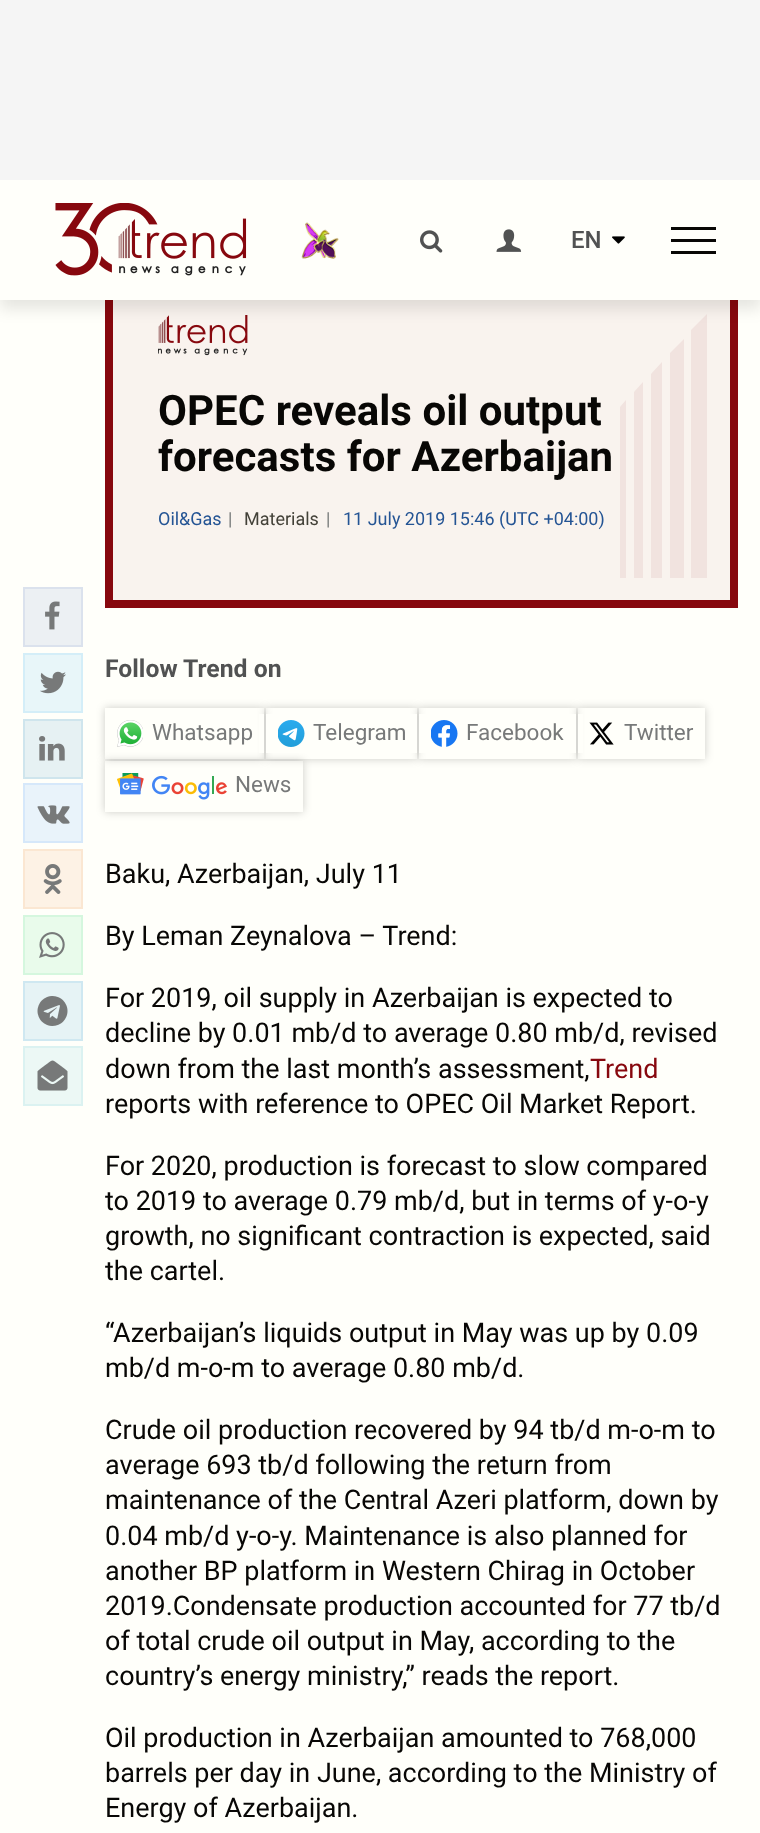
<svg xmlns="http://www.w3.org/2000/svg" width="760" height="1833">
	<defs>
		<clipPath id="clip1"><path d="M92 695H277V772H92ZM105 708H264V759H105Z" clip-rule="evenodd" /></clipPath>
		<clipPath id="clip2"><path d="M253 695H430V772H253ZM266 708H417V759H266Z" clip-rule="evenodd" /></clipPath>
		<clipPath id="clip3"><path d="M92 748H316V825H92ZM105 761H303V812H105Z" clip-rule="evenodd" /></clipPath>
		<clipPath id="clip4"><path d="M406 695H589V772H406ZM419 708H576V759H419Z" clip-rule="evenodd" /></clipPath>
		<clipPath id="clip5"><path d="M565 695H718V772H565ZM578 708H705V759H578Z" clip-rule="evenodd" /></clipPath>
	</defs>
	<rect width="100%" height="100%" fill="#FFFFFA" />
	<rect x="113" y="300" width="617" height="300" fill="#F9F3EE" />
	<rect x="109" y="267" width="625" height="337" fill="none" stroke="#87080E" stroke-width="8" />
	<image x="158" y="315" width="90" height="41" href="assets/img14.png" />
	<path d="M707 314V578H691V330ZM670 578H684V339L670 353ZM651 578H662V362L651 374ZM634 578H643V382L634 392ZM620 578H626V400L620 407Z" fill="#F1E3DF" />
	<rect x="0" y="189" width="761" height="120" fill="#000000" fill-opacity="0.1" filter="blur(7.5px)" />
	<rect x="0" y="0" width="760" height="180" fill="#F5F5F5" />
	<rect x="0" y="180" width="760" height="120" fill="#FFFFFA" />
	<image x="55" y="203" width="192" height="73" href="assets/img1.png" />
	<image x="301" y="222" width="38" height="37" href="assets/img2.png" />
	<image x="420" y="230" width="23" height="23" href="assets/img3.png" />
	<image x="496" y="229" width="26" height="23" href="assets/img4.png" />
	<text x="571" y="248" font-family="Roboto" font-size="24" font-weight="500" fill="#515252">EN</text>
	<image x="612" y="236" width="13" height="8" href="assets/img5.png" />
	<rect x="671" y="227" width="45" height="3" fill="#080705" />
	<rect x="671" y="239" width="45" height="3" fill="#080705" />
	<rect x="671" y="251" width="45" height="3" fill="#080705" />
	<rect x="24" y="588" width="58" height="58" fill="#ECF0F3" stroke="#DBE2ED" stroke-width="2" />
	<image x="45" y="601" width="15" height="29" href="assets/img6.png" />
	<rect x="24" y="654" width="58" height="58" fill="#E8F6F9" stroke="#D4EEF8" stroke-width="2" />
	<image x="40" y="671" width="26" height="23" href="assets/img7.png" />
	<rect x="24" y="720" width="58" height="58" fill="#E6F1F3" stroke="#CFE5ED" stroke-width="2" />
	<image x="39" y="736" width="26" height="25" href="assets/img8.png" />
	<rect x="24" y="784" width="58" height="58" fill="#E9F3FA" stroke="#D6E8FA" stroke-width="2" />
	<image x="37" y="805" width="33" height="19" href="assets/img9.png" />
	<rect x="24" y="850" width="58" height="58" fill="#FDF2E5" stroke="#FBE7D2" stroke-width="2" />
	<image x="43" y="864" width="19" height="30" href="assets/img10.png" />
	<rect x="24" y="916" width="58" height="58" fill="#E9FBEB" stroke="#D5F7DE" stroke-width="2" />
	<image x="39" y="932" width="26" height="26" href="assets/img11.png" />
	<rect x="24" y="982" width="58" height="58" fill="#E6F3F5" stroke="#CFE8F1" stroke-width="2" />
	<image x="37" y="996" width="31" height="30" href="assets/img12.png" />
	<rect x="24" y="1047" width="58" height="58" fill="#ECF8F5" stroke="#DBF2F1" stroke-width="2" />
	<image x="37" y="1060" width="31" height="31" href="assets/img13.png" />
	<g font-family="Roboto" font-size="42" font-weight="700" fill="#080705">
		<text x="158" y="425">OPEC reveals oil output</text>
		<text x="158" y="471">forecasts for Azerbaijan</text>
	</g>
	<text x="158" y="525" font-family="Roboto" font-size="18" fill="#245494">Oil&amp;Gas</text>
	<text x="228" y="525" font-family="Roboto" font-size="18" fill="#777979">|</text>
	<text x="244" y="525" font-family="Roboto" font-size="18" fill="#434138">Materials</text>
	<text x="326" y="525" font-family="Roboto" font-size="18" fill="#777979">|</text>
	<text x="343" y="525" font-family="Roboto" font-size="18" fill="#245494">11 July 2019 15:46 (UTC +04:00)</text>
	<text x="105" y="677" font-family="Roboto" font-size="24.75" font-weight="700" fill="#515252">Follow Trend on</text>
	<g clip-path="url(#clip1)">
		<rect x="105" y="708" width="159" height="51" fill="#000000" fill-opacity="0.2" filter="blur(4px)" />
	</g>
	<g clip-path="url(#clip2)">
		<rect x="266" y="708" width="151" height="51" fill="#000000" fill-opacity="0.2" filter="blur(4px)" />
	</g>
	<g clip-path="url(#clip3)">
		<rect x="105" y="761" width="198" height="51" fill="#000000" fill-opacity="0.2" filter="blur(4px)" />
	</g>
	<rect x="259" y="714" width="5" height="39" fill="#FFFFFA" />
	<image x="117" y="720" width="26" height="27" href="assets/img15.png" />
	<text x="152" y="740" font-family="Roboto" font-size="22.5" fill="#777979">Whatsapp</text>
	<g clip-path="url(#clip4)">
		<rect x="419" y="708" width="157" height="51" fill="#000000" fill-opacity="0.2" filter="blur(4px)" />
	</g>
	<rect x="266" y="714" width="151" height="39" fill="#FFFFFA" />
	<image x="278" y="720" width="27" height="27" href="assets/img16.png" />
	<text x="313" y="740" font-family="Roboto" font-size="22.5" fill="#777979">Telegram</text>
	<g clip-path="url(#clip5)">
		<rect x="578" y="708" width="127" height="51" fill="#000000" fill-opacity="0.2" filter="blur(4px)" />
	</g>
	<rect x="419" y="714" width="157" height="39" fill="#FFFFFA" />
	<image x="431" y="720" width="27" height="27" href="assets/img17.png" />
	<text x="466" y="740" font-family="Roboto" font-size="22.5" fill="#777979">Facebook</text>
	<rect x="578" y="714" width="5" height="39" fill="#FFFFFA" />
	<image x="589" y="722" width="25" height="23" href="assets/img18.png" />
	<text x="624" y="740" font-family="Roboto" font-size="22.5" fill="#777979">Twitter</text>
	<image x="117" y="773" width="110" height="27" href="assets/img19.png" />
	<text x="235" y="792" font-family="Roboto" font-size="22.5" fill="#777979">News</text>
	<g font-family="Roboto" font-size="27" fill="#080705">
		<text x="105" y="883">Baku, Azerbaijan, July 11</text>
		<text x="105" y="945">By Leman Zeynalova – Trend:</text>
		<text x="105" y="1007">For 2019, oil supply in Azerbaijan is expected to</text>
		<text x="105" y="1042">decline by 0.01 mb/d to average 0.80 mb/d, revised</text>
		<text x="105" y="1078">down from the last month’s assessment,</text>
	</g>
	<text x="590" y="1078" font-family="Roboto" font-size="27" fill="#87080E">Trend</text>
	<g font-family="Roboto" font-size="27" fill="#080705">
		<text x="105" y="1113">reports with reference to OPEC Oil Market Report.</text>
		<text x="105" y="1175">For 2020, production is forecast to slow compared</text>
		<text x="105" y="1210">to 2019 to average 0.79 mb/d, but in terms of y-o-y</text>
		<text x="105" y="1245">growth, no significant contraction is expected, said</text>
		<text x="105" y="1280">the cartel.</text>
		<text x="105" y="1342">“Azerbaijan’s liquids output in May was up by 0.09</text>
		<text x="105" y="1377">mb/d m-o-m to average 0.80 mb/d.</text>
		<text x="105" y="1439">Crude oil production recovered by 94 tb/d m-o-m to</text>
		<text x="105" y="1474">average 693 tb/d following the return from</text>
		<text x="105" y="1509">maintenance of the Central Azeri platform, down by</text>
		<text x="105" y="1545">0.04 mb/d y-o-y. Maintenance is also planned for</text>
		<text x="105" y="1580">another BP platform in Western Chirag in October</text>
		<text x="105" y="1615">2019.Condensate production accounted for 77 tb/d</text>
		<text x="105" y="1650">of total crude oil output in May, according to the</text>
		<text x="105" y="1685">country’s energy ministry,” reads the report.</text>
		<text x="105" y="1747">Oil production in Azerbaijan amounted to 768,000</text>
		<text x="105" y="1782">barrels per day in June, according to the Ministry of</text>
		<text x="105" y="1817">Energy of Azerbaijan.</text>
	</g>
</svg>
